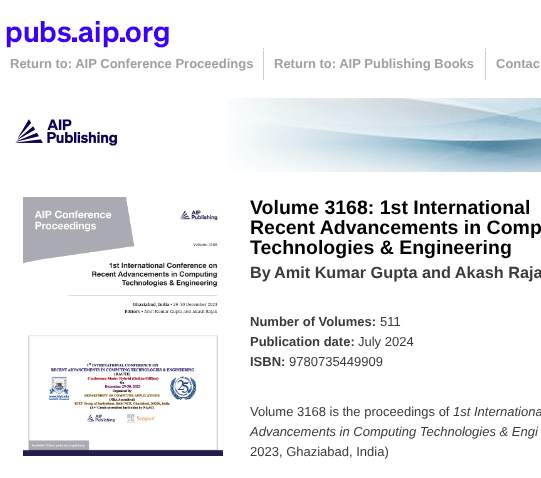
<svg xmlns="http://www.w3.org/2000/svg" width="541" height="478">
	<rect width="100%" height="100%" fill="#FFFFFF" />
	<rect x="263" y="48" width="1" height="32" fill="#CCCCCC" />
	<rect x="485" y="48" width="1" height="32" fill="#CCCCCC" />
	<path d="M0 47V48C0 50 1 51 3 51H538C540 51 541 50 541 48V47C541 49 540 50 538 50H3C1 50 0 49 0 47Z" fill="#FFFFFF" />
	<image x="0" y="16" width="169" height="32" href="assets/img1.png" />
	<g font-family="Liberation Sans" font-size="13" font-weight="700" fill="#A0A0A0">
		<text x="10" y="68">Return to: AIP Conference Proceedings</text>
		<text x="274" y="68">Return to: AIP Publishing Books</text>
		<text x="496" y="68">Contac</text>
	</g>
	<image x="227" y="98" width="314" height="74" href="assets/img2.png" />
	<image x="15" y="119" width="102" height="27" href="assets/img3.png" />
	<image x="23" y="197" width="200" height="259" href="assets/img4.png" />
	<g font-family="Liberation Sans" font-size="19.5" font-weight="700" fill="#000000">
		<text x="250" y="214">Volume 3168: 1st International</text>
		<text x="250" y="234">Recent Advancements in Comp</text>
		<text x="250" y="254">Technologies &amp; Engineering</text>
	</g>
	<g font-family="Liberation Sans" font-size="16.25" font-weight="700" fill="#3B3B3B">
		<text x="250" y="278">By</text>
		<text x="274" y="278">Amit Kumar Gupta and Akash Raja</text>
	</g>
	<text x="250" y="326" font-family="Liberation Sans" font-size="13" font-weight="700" fill="#3B3B3B">Number of Volumes:</text>
	<text x="380" y="326" font-family="Liberation Sans" font-size="13" fill="#3B3B3B">511</text>
	<text x="250" y="346" font-family="Liberation Sans" font-size="13" font-weight="700" fill="#3B3B3B">Publication date:</text>
	<text x="358" y="346" font-family="Liberation Sans" font-size="13" fill="#3B3B3B">July 2024</text>
	<text x="250" y="366" font-family="Liberation Sans" font-size="13" font-weight="700" fill="#3B3B3B">ISBN:</text>
	<g font-family="Liberation Sans" font-size="13" fill="#3B3B3B">
		<text x="289" y="366">9780735449909</text>
		<text x="250" y="416">Volume 3168 is the proceedings of</text>
	</g>
	<g font-family="Liberation Sans" font-size="13" font-style="italic" fill="#3B3B3B">
		<text x="453" y="416">1st Internationa</text>
		<text x="250" y="436">Advancements in Computing Technologies &amp; Engi</text>
	</g>
	<text x="250" y="456" font-family="Liberation Sans" font-size="13" fill="#3B3B3B">2023, Ghaziabad, India)</text>
</svg>
